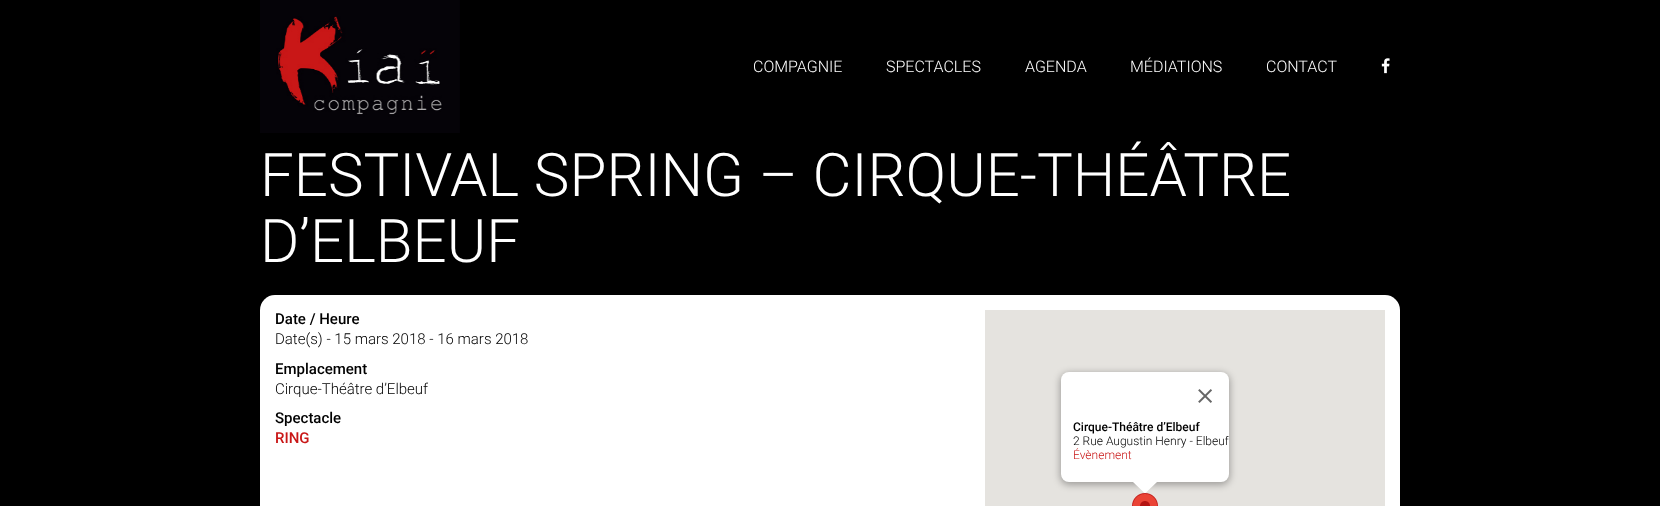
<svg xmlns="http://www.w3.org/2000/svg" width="1660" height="506">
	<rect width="100%" height="100%" fill="#000000" />
	<image x="260" y="0" width="200" height="133" href="assets/img1.png" />
	<g font-family="Roboto" font-size="16" font-weight="300" fill="#FFFFFF">
		<text x="753" y="72">COMPAGNIE</text>
		<text x="886" y="72">SPECTACLES</text>
		<text x="1025" y="72">AGENDA</text>
		<text x="1130" y="72">MÉDIATIONS</text>
		<text x="1266" y="72">CONTACT</text>
	</g>
	<image x="1381" y="58" width="9" height="16" href="assets/img2.png" />
	<g font-family="Roboto" font-size="60" font-weight="300" fill="#FFFFFF">
		<text x="260" y="196">FESTIVAL SPRING – CIRQUE-THÉÂTRE</text>
		<text x="260" y="262">D’ELBEUF</text>
	</g>
	<rect x="260" y="295" width="1140" height="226" rx="15" fill="#FFFFFF" />
	<text x="275" y="324" font-family="Roboto" font-size="15" font-weight="500" fill="#000000">Date / Heure</text>
	<text x="275" y="344" font-family="Roboto" font-size="15" font-weight="300" fill="#000000">Date(s) - 15 mars 2018 - 16 mars 2018</text>
	<text x="275" y="374" font-family="Roboto" font-size="15" font-weight="500" fill="#000000">Emplacement</text>
	<text x="275" y="394" font-family="Roboto" font-size="15" font-weight="300" fill="#000000">Cirque-Théâtre d’Elbeuf</text>
	<text x="275" y="423" font-family="Roboto" font-size="15" font-weight="500" fill="#000000">Spectacle</text>
	<text x="275" y="443" font-family="Roboto" font-size="15" font-weight="500" fill="#C91717">RING</text>
	<rect x="985" y="310" width="400" height="196" fill="#E5E3DF" />
	<image x="1132" y="493" width="26" height="13" href="assets/img4.png" />
	<rect x="1060" y="373" width="170" height="112" rx="9" fill="#000000" fill-opacity="0.3" filter="blur(3.5px)" />
	<rect x="1061" y="372" width="168" height="110" rx="8" fill="#FFFFFF" />
	<image x="1198" y="389" width="14" height="14" href="assets/img3.png" />
	<text x="1073" y="431" font-family="Roboto" font-size="12" font-weight="500" fill="#000000">Cirque-Théâtre d’Elbeuf</text>
	<text x="1073" y="445" font-family="Roboto" font-size="12" font-weight="300" fill="#000000">2 Rue Augustin Henry - Elbeuf</text>
	<text x="1073" y="459" font-family="Roboto" font-size="12" font-weight="300" fill="#C91717">Évènement</text>
	<path d="M1133 482V481.5H1157.5L1145.5 493H1144.5Z" fill="#FFFFFF" />
</svg>
